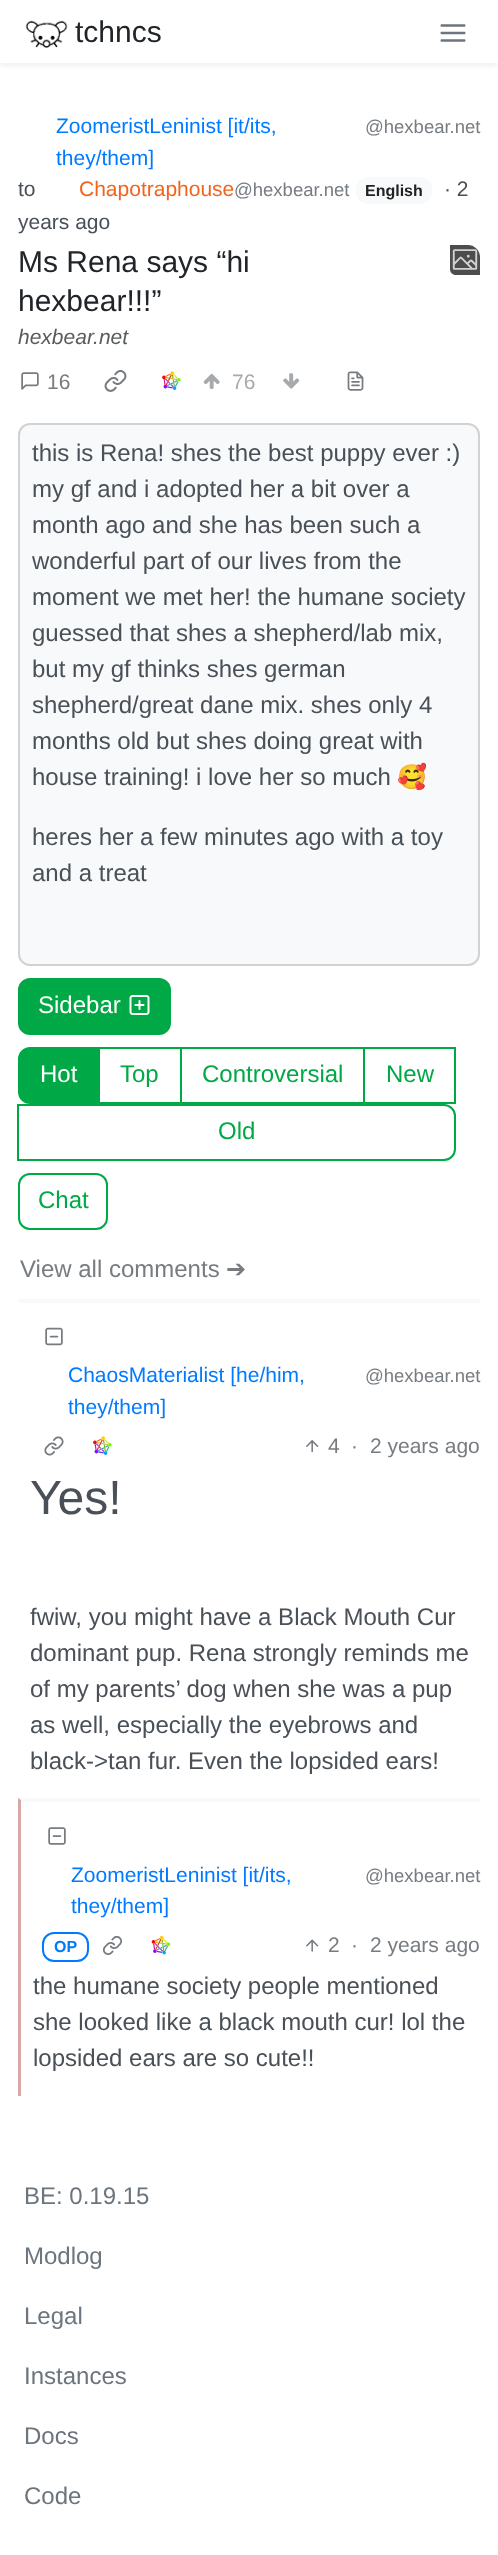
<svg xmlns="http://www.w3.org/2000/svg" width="498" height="2555">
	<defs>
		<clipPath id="clip1"><rect x="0" y="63" width="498" height="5" /></clipPath>
	</defs>
	<rect width="100%" height="100%" fill="#FFFFFF" />
	<g clip-path="url(#clip1)">
		<rect x="0" y="3" width="498" height="63" fill="#222222" fill-opacity="0.07" filter="blur(3px)" />
	</g>
	<image x="25" y="20" width="43" height="28" href="assets/img1.png" />
	<text x="75" y="42" font-family="Liberation Sans" font-size="30" fill="#212529">tchncs</text>
	<image x="440" y="24" width="26" height="18" href="assets/img2.png" />
	<g font-family="Liberation Sans" font-size="21" fill="#007BFF">
		<text x="56" y="133">ZoomeristLeninist [it/its,</text>
		<text x="56" y="165">they/them]</text>
	</g>
	<text x="365" y="133" font-family="Liberation Sans" font-size="18.5" fill="#777C81">@hexbear.net</text>
	<text x="18" y="196" font-family="Liberation Sans" font-size="21" fill="#495057">to</text>
	<text x="79" y="196" font-family="Liberation Sans" font-size="21" fill="#F1641E">Chapotraphouse</text>
	<text x="234" y="196" font-family="Liberation Sans" font-size="18.5" fill="#777C81">@hexbear.net</text>
	<rect x="356" y="177" width="76" height="27" rx="12" fill="#F8F9FA" />
	<text x="365" y="196" font-family="Liberation Sans" font-size="16" font-weight="700" fill="#222222">English</text>
	<g font-family="Liberation Sans" font-size="21" fill="#495057">
		<text x="444" y="196">· 2</text>
		<text x="18" y="229">years ago</text>
	</g>
	<g font-family="Liberation Sans" font-size="30" fill="#212529">
		<text x="18" y="272">Ms Rena says “hi</text>
		<text x="18" y="311">hexbear!!!”</text>
	</g>
	<text x="18" y="344" font-family="Liberation Sans" font-size="21" font-style="italic" fill="#595C5F">hexbear.net</text>
	<path d="M450 245H468C474.5 245 480 250.5 480 257V275H456C452.5 275 450 272.5 450 269Z" fill="#4D4D4D" />
	<image x="452" y="249" width="26" height="21" href="assets/img3.png" />
	<image x="21" y="372" width="18" height="18" href="assets/img4.png" />
	<text x="47" y="389" font-family="Liberation Sans" font-size="21" fill="#777C81">16</text>
	<image x="104" y="370" width="23" height="22" href="assets/img5.png" />
	<image x="162" y="371" width="19" height="19" href="assets/img6.png" />
	<image x="203" y="374" width="17" height="15" href="assets/img7.png" />
	<text x="232" y="389" font-family="Liberation Sans" font-size="21" fill="#A7AAAD">76</text>
	<image x="283" y="373" width="17" height="16" href="assets/img8.png" />
	<image x="347" y="371" width="17" height="20" href="assets/img9.png" />
	<rect x="18" y="423" width="462" height="543" rx="12" fill="#F8F9FA" />
	<rect x="19" y="424" width="460" height="541" rx="11" fill="none" stroke="#222222" stroke-opacity="0.18" stroke-width="2" />
	<g font-family="Liberation Sans" font-size="24" fill="#495057">
		<text x="32" y="461">this is Rena! shes the best puppy ever :)</text>
		<text x="32" y="497">my gf and i adopted her a bit over a</text>
		<text x="32" y="533">month ago and she has been such a</text>
		<text x="32" y="569">wonderful part of our lives from the</text>
		<text x="32" y="605">moment we met her! the humane society</text>
		<text x="32" y="641">guessed that shes a shepherd/lab mix,</text>
		<text x="32" y="677">but my gf thinks shes german</text>
		<text x="32" y="713">shepherd/great dane mix. shes only 4</text>
		<text x="32" y="749">months old but shes doing great with</text>
		<text x="32" y="785">house training! i love her so much</text>
	</g>
	<text x="397" y="785" font-family="Noto Color Emoji" font-size="24" fill="#495057">🥰</text>
	<g font-family="Liberation Sans" font-size="24" fill="#495057">
		<text x="32" y="845">heres her a few minutes ago with a toy</text>
		<text x="32" y="881">and a treat</text>
	</g>
	<rect x="19" y="979" width="151" height="55" rx="11" fill="#00A846" stroke="#00A846" stroke-width="2" />
	<text x="38" y="1013" font-family="Liberation Sans" font-size="24" fill="#FFFFFF">Sidebar</text>
	<image x="129" y="995" width="21" height="20" href="assets/img10.png" />
	<rect x="99" y="1048" width="82" height="55" fill="none" stroke="#00A846" stroke-width="2" />
	<path d="M30 1048H98V1103H30C24 1103 19 1098 19 1092V1059C19 1053 24 1048 30 1048Z" fill="#00A846" stroke="#00A846" stroke-width="2" />
	<text x="40" y="1082" font-family="Liberation Sans" font-size="24" fill="#FFFFFF">Hot</text>
	<text x="120" y="1082" font-family="Liberation Sans" font-size="24" fill="#00A846">Top</text>
	<rect x="181" y="1048" width="183" height="55" fill="none" stroke="#00A846" stroke-width="2" />
	<text x="202" y="1082" font-family="Liberation Sans" font-size="24" fill="#00A846">Controversial</text>
	<rect x="364" y="1048" width="91" height="55" fill="none" stroke="#00A846" stroke-width="2" />
	<text x="386" y="1082" font-family="Liberation Sans" font-size="24" fill="#00A846">New</text>
	<path d="M18 1105H444C450 1105 455 1110 455 1116V1149C455 1155 450 1160 444 1160H18Z" fill="none" stroke="#00A846" stroke-width="2" />
	<text x="218" y="1139" font-family="Liberation Sans" font-size="24" fill="#00A846">Old</text>
	<rect x="19" y="1174" width="88" height="55" rx="11" fill="none" stroke="#00A846" stroke-width="2" />
	<text x="38" y="1208" font-family="Liberation Sans" font-size="24" fill="#00A846">Chat</text>
	<text x="20" y="1277" font-family="Liberation Sans" font-size="24" fill="#777C81">View all comments</text>
	<text x="226" y="1277" font-family="DejaVu Sans" font-size="24" fill="#777C81">➔</text>
	<rect x="18" y="1299" width="462" height="4" fill="#F8F9FA" />
	<image x="45" y="1327" width="18" height="19" href="assets/img11.png" />
	<g font-family="Liberation Sans" font-size="21" fill="#007BFF">
		<text x="68" y="1382">ChaosMaterialist [he/him,</text>
		<text x="68" y="1414">they/them]</text>
	</g>
	<text x="365" y="1382" font-family="Liberation Sans" font-size="18.5" fill="#777C81">@hexbear.net</text>
	<image x="44" y="1436" width="20" height="20" href="assets/img12.png" />
	<image x="93" y="1436" width="19" height="19" href="assets/img13.png" />
	<image x="306" y="1440" width="13" height="13" href="assets/img14.png" />
	<g font-family="Liberation Sans" font-size="21" fill="#777C81">
		<text x="328" y="1453">4</text>
		<text x="351" y="1453">·</text>
		<text x="370" y="1453">2 years ago</text>
	</g>
	<text x="30" y="1514" font-family="Liberation Sans" font-size="48" fill="#495057">Yes!</text>
	<g font-family="Liberation Sans" font-size="24" fill="#495057">
		<text x="30" y="1625">fwiw, you might have a Black Mouth Cur</text>
		<text x="30" y="1661">dominant pup. Rena strongly reminds me</text>
		<text x="30" y="1697">of my parents’ dog when she was a pup</text>
		<text x="30" y="1733">as well, especially the eyebrows and</text>
		<text x="30" y="1769">black-&gt;tan fur. Even the lopsided ears!</text>
	</g>
	<path d="M18 1798H480V1800H21Z" fill="#F8F9FA" />
	<path d="M18 2096V1798L21 1800V2096Z" fill="#D5A9A9" />
	<rect x="21" y="1800" width="459" height="2" fill="#F8F9FA" />
	<image x="48" y="1827" width="18" height="18" href="assets/img15.png" />
	<g font-family="Liberation Sans" font-size="21" fill="#007BFF">
		<text x="71" y="1882">ZoomeristLeninist [it/its,</text>
		<text x="71" y="1913">they/them]</text>
	</g>
	<text x="365" y="1882" font-family="Liberation Sans" font-size="18.5" fill="#777C81">@hexbear.net</text>
	<rect x="43" y="1933" width="45" height="28" rx="11" fill="none" stroke="#007BFF" stroke-width="2" />
	<text x="54" y="1952" font-family="Liberation Sans" font-size="16" font-weight="700" fill="#007BFF">OP</text>
	<image x="102" y="1936" width="20" height="19" href="assets/img16.png" />
	<image x="151" y="1935" width="20" height="20" href="assets/img17.png" />
	<image x="306" y="1939" width="13" height="13" href="assets/img18.png" />
	<g font-family="Liberation Sans" font-size="21" fill="#777C81">
		<text x="328" y="1952">2</text>
		<text x="351" y="1952">·</text>
		<text x="370" y="1952">2 years ago</text>
	</g>
	<g font-family="Liberation Sans" font-size="24" fill="#495057">
		<text x="33" y="1994">the humane society people mentioned</text>
		<text x="33" y="2030">she looked like a black mouth cur! lol the</text>
		<text x="33" y="2066">lopsided ears are so cute!!</text>
	</g>
	<g font-family="Liberation Sans" font-size="24" fill="#6C757D">
		<text x="24" y="2204">BE: 0.19.15</text>
		<text x="24" y="2264">Modlog</text>
		<text x="24" y="2324">Legal</text>
		<text x="24" y="2384">Instances</text>
		<text x="24" y="2444">Docs</text>
		<text x="24" y="2504">Code</text>
	</g>
</svg>
